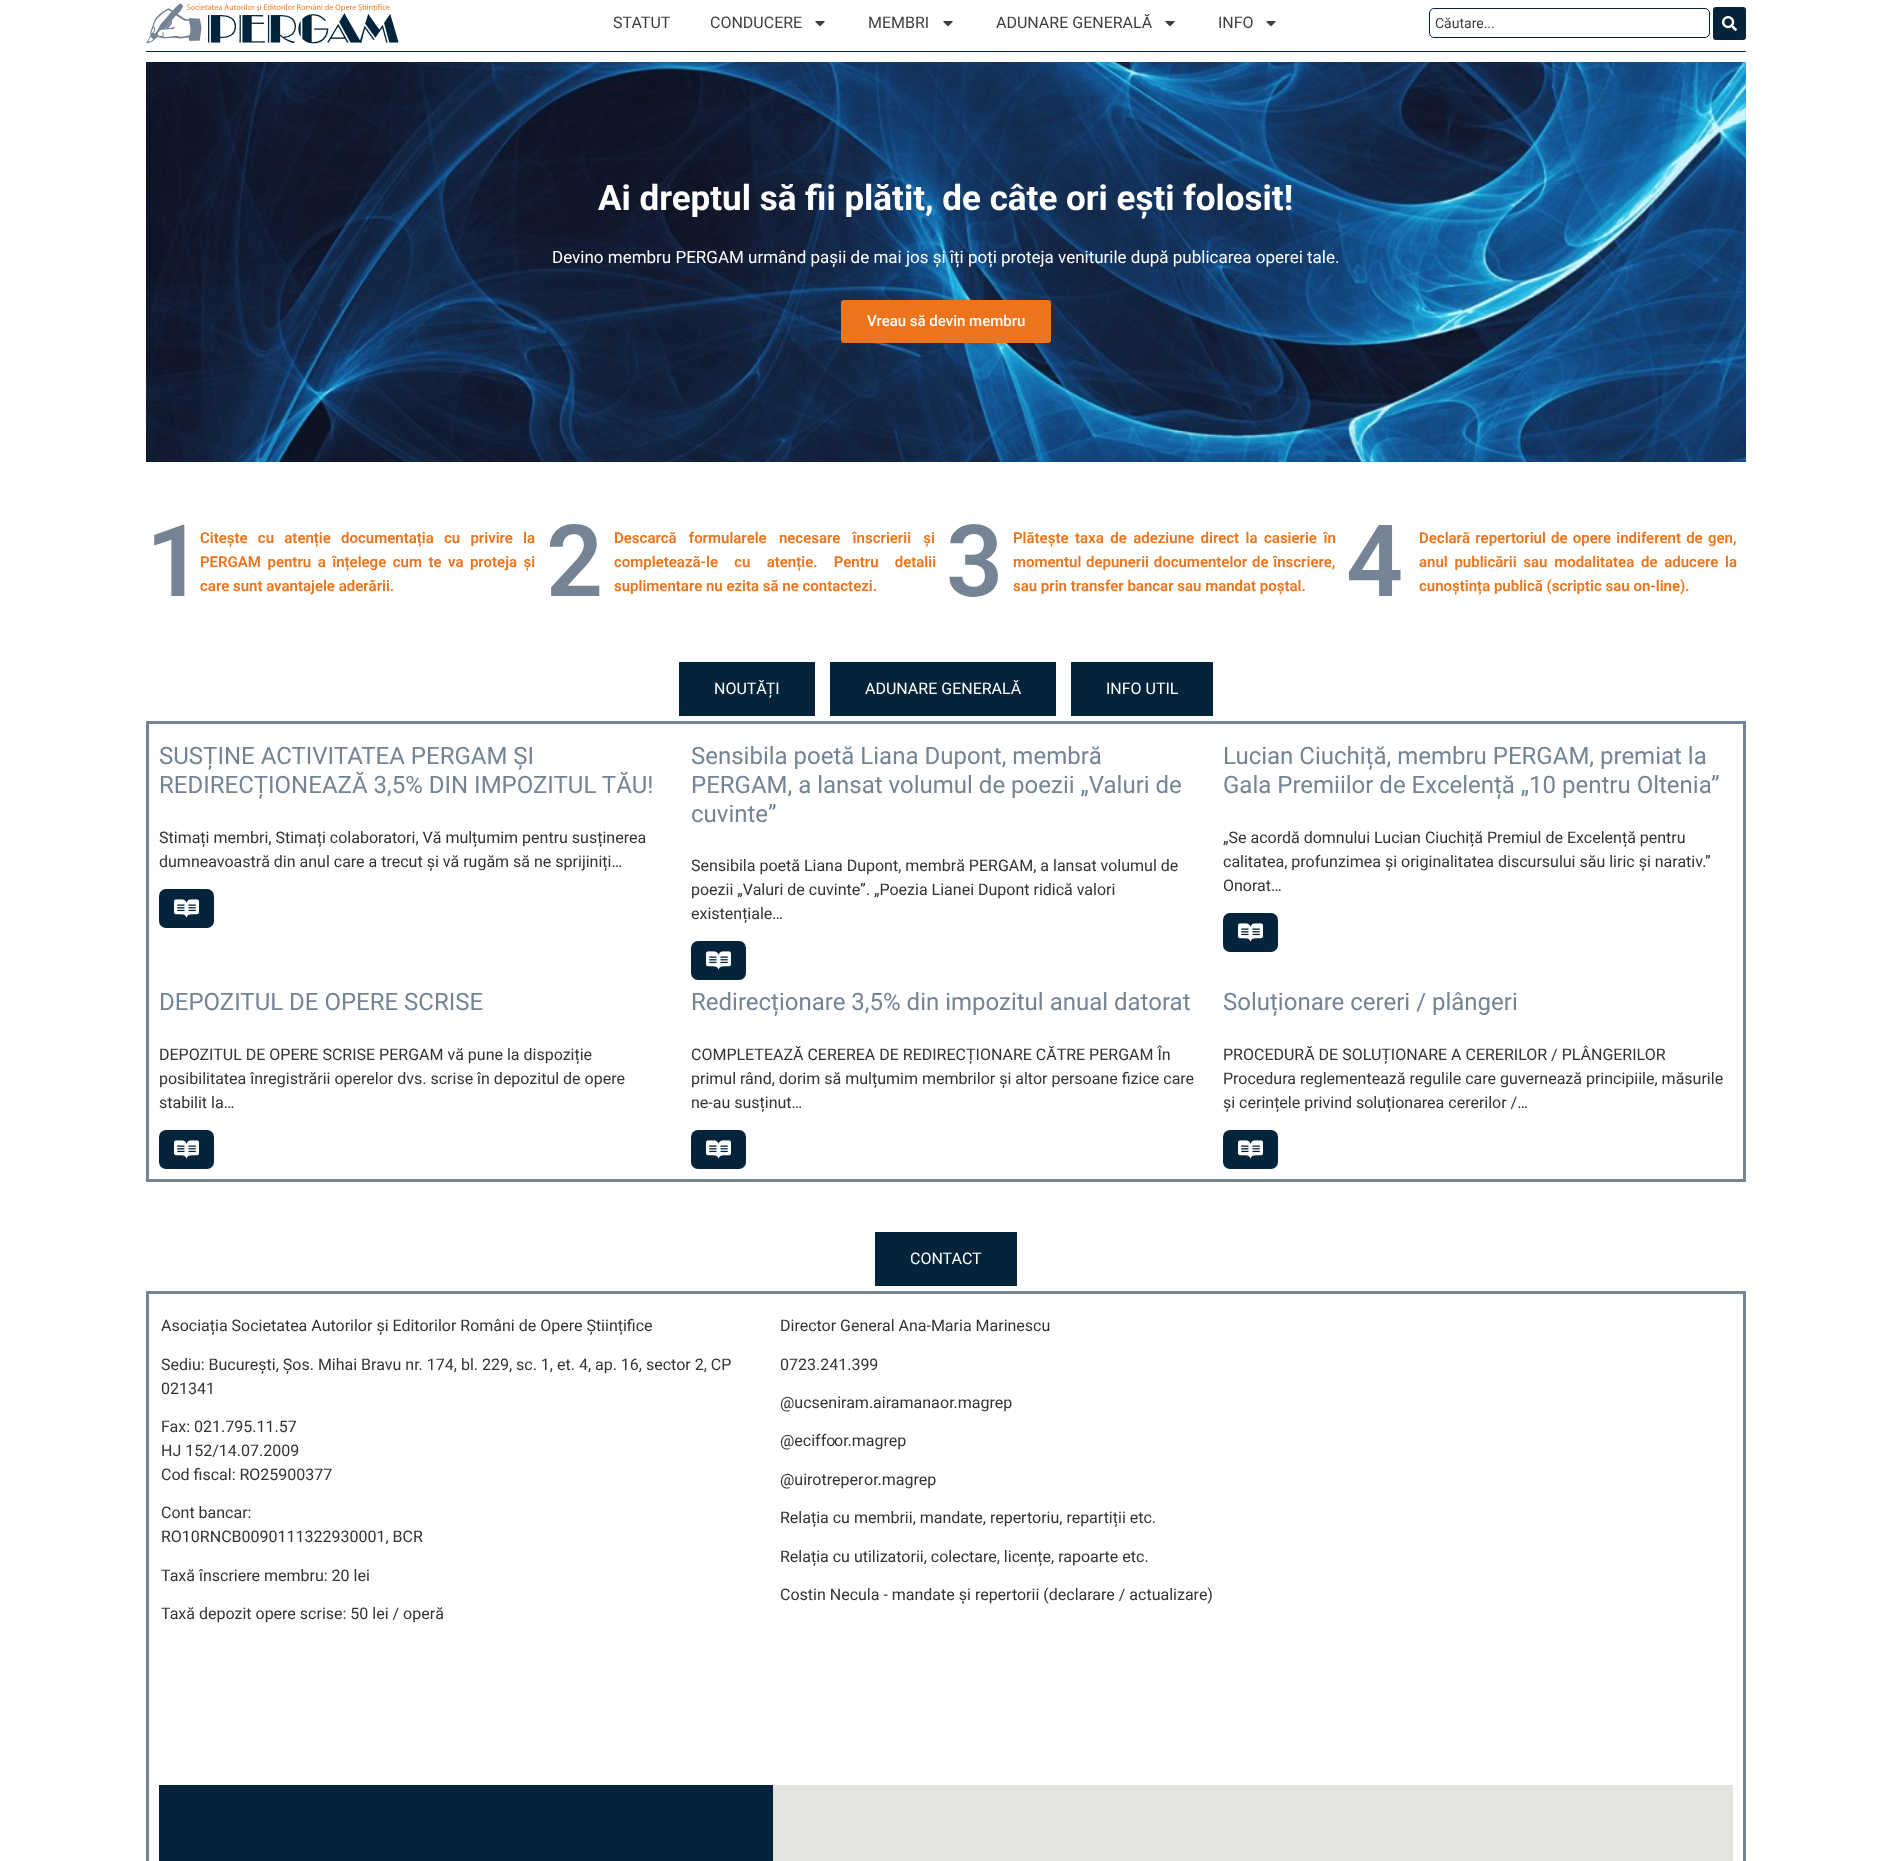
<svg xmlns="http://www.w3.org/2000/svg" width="1892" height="1861">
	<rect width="100%" height="100%" fill="#FFFFFF" />
	<image x="146" y="3" width="253" height="41" href="assets/img1.png" />
	<g font-family="Roboto" font-size="16" fill="#3E3E3E">
		<text x="613" y="28">STATUT</text>
		<text x="710" y="28">CONDUCERE</text>
	</g>
	<image x="815" y="21" width="10" height="6" href="assets/img2.png" />
	<text x="868" y="28" font-family="Roboto" font-size="16" fill="#3E3E3E">MEMBRI</text>
	<image x="943" y="21" width="10" height="6" href="assets/img2.png" />
	<text x="996" y="28" font-family="Roboto" font-size="16" fill="#3E3E3E">ADUNARE GENERALĂ</text>
	<image x="1165" y="21" width="10" height="6" href="assets/img2.png" />
	<text x="1218" y="28" font-family="Roboto" font-size="16" fill="#3E3E3E">INFO</text>
	<image x="1266" y="21" width="10" height="6" href="assets/img2.png" />
	<rect x="1429.5" y="8.5" width="280" height="29" rx="4.5" fill="none" stroke="#04243C" />
	<text x="1435" y="28" font-family="Roboto" font-size="14" fill="#3E3E3E">Căutare...</text>
	<rect x="1713" y="7" width="33" height="33" rx="3" fill="#04243C" />
	<image x="1722" y="16" width="15" height="15" href="assets/img3.png" />
	<rect x="146" y="51" width="1600" height="1" fill="#04243C" />
	<image x="146" y="62" width="1600" height="400" href="assets/img4.png" />
	<text x="598" y="210" font-family="Roboto" font-size="35" font-weight="700" fill="#FFFFFF">Ai dreptul să fii plătit, de câte ori ești folosit!</text>
	<text x="552" y="263" font-family="Roboto" font-size="17" fill="#FFFFFF">Devino membru PERGAM urmând pașii de mai jos și îți poți proteja veniturile după publicarea operei tale.</text>
	<rect x="842" y="301" width="208" height="41" rx="2" fill="#EC741C" stroke="#EC741C" stroke-width="2" />
	<text x="867" y="326" font-family="Roboto" font-size="15" font-weight="500" fill="#FFFFFF">Vreau să devin membru</text>
	<text x="146" y="596" font-family="Roboto" font-size="100" font-weight="600" fill="#748494">1</text>
	<g font-family="Roboto" font-size="15" font-weight="600" fill="#EC741C">
		<text x="200" y="543" word-spacing="6.5">Citește cu atenție documentația cu privire la</text>
		<text x="200" y="567" word-spacing="2.75">PERGAM pentru a înțelege cum te va proteja și</text>
		<text x="200" y="591">care sunt avantajele aderării.</text>
	</g>
	<text x="546" y="596" font-family="Roboto" font-size="100" font-weight="600" fill="#748494">2</text>
	<g font-family="Roboto" font-size="15" font-weight="600" fill="#EC741C">
		<text x="614" y="543" word-spacing="8.5">Descarcă formularele necesare înscrierii și</text>
		<text x="614" y="567" word-spacing="12.5">completează-le cu atenție. Pentru detalii</text>
		<text x="614" y="591">suplimentare nu ezita să ne contactezi.</text>
	</g>
	<text x="946" y="596" font-family="Roboto" font-size="100" font-weight="600" fill="#748494">3</text>
	<g font-family="Roboto" font-size="15" font-weight="600" fill="#EC741C">
		<text x="1013" y="543" word-spacing="2.75">Plătește taxa de adeziune direct la casierie în</text>
		<text x="1013" y="567" word-spacing="1">momentul depunerii documentelor de înscriere,</text>
		<text x="1013" y="591">sau prin transfer bancar sau mandat poștal.</text>
	</g>
	<text x="1346" y="596" font-family="Roboto" font-size="100" font-weight="600" fill="#748494">4</text>
	<g font-family="Roboto" font-size="15" font-weight="600" fill="#EC741C">
		<text x="1419" y="543" word-spacing="1.5">Declară repertoriul de opere indiferent de gen,</text>
		<text x="1419" y="567" word-spacing="3">anul publicării sau modalitatea de aducere la</text>
		<text x="1419" y="591">cunoștința publică (scriptic sau on-line).</text>
	</g>
	<rect x="679" y="662" width="136" height="54" fill="#04243C" />
	<text x="714" y="694" font-family="Roboto" font-size="16" fill="#FFFFFF">NOUTĂȚI</text>
	<rect x="830" y="662" width="226" height="54" fill="#04243C" />
	<text x="865" y="694" font-family="Roboto" font-size="16" fill="#FFFFFF">ADUNARE GENERALĂ</text>
	<rect x="1071" y="662" width="142" height="54" fill="#04243C" />
	<text x="1106" y="694" font-family="Roboto" font-size="16" fill="#FFFFFF">INFO UTIL</text>
	<rect x="147.5" y="722.5" width="1597" height="458" fill="none" stroke="#748494" stroke-width="3" />
	<g font-family="Roboto" font-size="24" fill="#748494">
		<text x="159" y="764">SUSȚINE ACTIVITATEA PERGAM ȘI</text>
		<text x="159" y="793">REDIRECȚIONEAZĂ 3,5% DIN IMPOZITUL TĂU!</text>
	</g>
	<g font-family="Roboto" font-size="16" fill="#333333">
		<text x="159" y="843">Stimați membri, Stimați colaboratori, Vă mulțumim pentru susținerea</text>
		<text x="159" y="867">dumneavoastră din anul care a trecut și vă rugăm să ne sprijiniți…</text>
	</g>
	<rect x="159" y="889" width="55" height="39" rx="7" fill="#04243C" />
	<image x="174" y="899" width="25" height="19" href="assets/img5.png" />
	<g font-family="Roboto" font-size="24" fill="#748494">
		<text x="691" y="764">Sensibila poetă Liana Dupont, membră</text>
		<text x="691" y="793">PERGAM, a lansat volumul de poezii „Valuri de</text>
		<text x="691" y="822">cuvinte”</text>
	</g>
	<g font-family="Roboto" font-size="16" fill="#333333">
		<text x="691" y="871">Sensibila poetă Liana Dupont, membră PERGAM, a lansat volumul de</text>
		<text x="691" y="895">poezii „Valuri de cuvinte”. „Poezia Lianei Dupont ridică valori</text>
		<text x="691" y="919">existențiale…</text>
	</g>
	<rect x="691" y="941" width="55" height="39" rx="7" fill="#04243C" />
	<image x="706" y="951" width="25" height="19" href="assets/img5.png" />
	<g font-family="Roboto" font-size="24" fill="#748494">
		<text x="1223" y="764">Lucian Ciuchiță, membru PERGAM, premiat la</text>
		<text x="1223" y="793">Gala Premiilor de Excelență „10 pentru Oltenia”</text>
	</g>
	<g font-family="Roboto" font-size="16" fill="#333333">
		<text x="1223" y="843">„Se acordă domnului Lucian Ciuchiță Premiul de Excelență pentru</text>
		<text x="1223" y="867">calitatea, profunzimea și originalitatea discursului său liric și narativ.”</text>
		<text x="1223" y="891">Onorat…</text>
	</g>
	<rect x="1223" y="913" width="55" height="39" rx="7" fill="#04243C" />
	<image x="1238" y="923" width="25" height="19" href="assets/img5.png" />
	<text x="159" y="1010" font-family="Roboto" font-size="24" fill="#748494">DEPOZITUL DE OPERE SCRISE</text>
	<g font-family="Roboto" font-size="16" fill="#333333">
		<text x="159" y="1060">DEPOZITUL DE OPERE SCRISE PERGAM vă pune la dispoziție</text>
		<text x="159" y="1084">posibilitatea înregistrării operelor dvs. scrise în depozitul de opere</text>
		<text x="159" y="1108">stabilit la…</text>
	</g>
	<rect x="159" y="1130" width="55" height="39" rx="7" fill="#04243C" />
	<image x="174" y="1140" width="25" height="19" href="assets/img5.png" />
	<text x="691" y="1010" font-family="Roboto" font-size="24" fill="#748494">Redirecționare 3,5% din impozitul anual datorat</text>
	<g font-family="Roboto" font-size="16" fill="#333333">
		<text x="691" y="1060">COMPLETEAZĂ CEREREA DE REDIRECȚIONARE CĂTRE PERGAM În</text>
		<text x="691" y="1084">primul rând, dorim să mulțumim membrilor și altor persoane fizice care</text>
		<text x="691" y="1108">ne-au susținut…</text>
	</g>
	<rect x="691" y="1130" width="55" height="39" rx="7" fill="#04243C" />
	<image x="706" y="1140" width="25" height="19" href="assets/img5.png" />
	<text x="1223" y="1010" font-family="Roboto" font-size="24" fill="#748494">Soluționare cereri / plângeri</text>
	<g font-family="Roboto" font-size="16" fill="#333333">
		<text x="1223" y="1060">PROCEDURĂ DE SOLUȚIONARE A CERERILOR / PLÂNGERILOR</text>
		<text x="1223" y="1084">Procedura reglementează regulile care guvernează principiile, măsurile</text>
		<text x="1223" y="1108">și cerințele privind soluționarea cererilor /…</text>
	</g>
	<rect x="1223" y="1130" width="55" height="39" rx="7" fill="#04243C" />
	<image x="1238" y="1140" width="25" height="19" href="assets/img5.png" />
	<rect x="875" y="1232" width="142" height="54" fill="#04243C" />
	<text x="910" y="1264" font-family="Roboto" font-size="16" fill="#FFFFFF">CONTACT</text>
	<rect x="147.5" y="1292.5" width="1597" height="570" fill="none" stroke="#748494" stroke-width="3" />
	<g font-family="Roboto" font-size="16" fill="#333333">
		<text x="161" y="1331">Asociația Societatea Autorilor și Editorilor Români de Opere Științifice</text>
		<text x="161" y="1370">Sediu: București, Șos. Mihai Bravu nr. 174, bl. 229, sc. 1, et. 4, ap. 16, sector 2, CP</text>
		<text x="161" y="1394">021341</text>
		<text x="161" y="1432">Fax: 021.795.11.57</text>
		<text x="161" y="1456">HJ 152/14.07.2009</text>
		<text x="161" y="1480">Cod fiscal: RO25900377</text>
		<text x="161" y="1518">Cont bancar:</text>
		<text x="161" y="1542">RO10RNCB0090111322930001, BCR</text>
		<text x="161" y="1581">Taxă înscriere membru: 20 lei</text>
		<text x="161" y="1619">Taxă depozit opere scrise: 50 lei / operă</text>
		<text x="780" y="1331">Director General Ana-Maria Marinescu</text>
		<text x="780" y="1370">0723.241.399</text>
		<text x="780" y="1408">@ucseniram.airamana</text>
		<text x="940" y="1408">or.magrep</text>
		<text x="834" y="1446">or.magrep</text>
		<text x="780" y="1446">@eciffo</text>
		<text x="780" y="1485">@uirotreper</text>
		<text x="864" y="1485">or.magrep</text>
		<text x="780" y="1523">Relația cu membrii, mandate, repertoriu, repartiții etc.</text>
		<text x="780" y="1562">Relația cu utilizatorii, colectare, licențe, rapoarte etc.</text>
		<text x="780" y="1600">Costin Necula - mandate și repertorii (declarare / actualizare)</text>
	</g>
	<rect x="159" y="1785" width="614" height="76" fill="#04243C" />
	<rect x="773" y="1785" width="960" height="76" fill="#E5E3DF" />
</svg>
